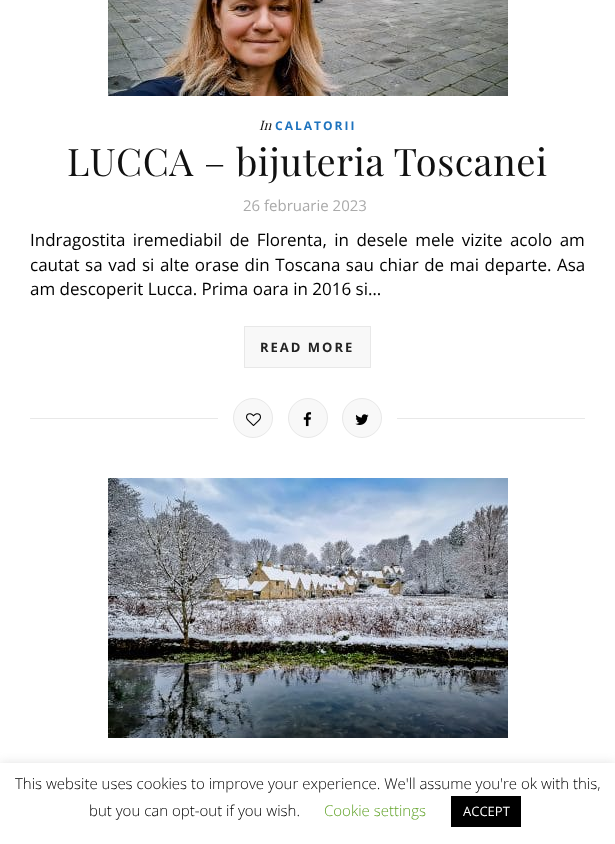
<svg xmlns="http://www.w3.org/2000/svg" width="615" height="844">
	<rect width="100%" height="100%" fill="#FFFFFF" />
	<image x="108" y="0" width="400" height="96" href="assets/img1.png" />
	<text x="259" y="130" font-family="Playfair Display" font-size="13" font-style="italic" fill="#111111">In</text>
	<text x="275" y="130" font-family="Open Sans" font-size="12" font-weight="700" letter-spacing="2" fill="#1E73BE">CALATORII</text>
	<text x="67" y="176" font-family="Playfair Display" font-size="38" letter-spacing="0.5" fill="#111111">LUCCA – bijuteria Toscanei</text>
	<text x="243" y="211" font-family="Open Sans" font-size="15" fill="#AAAAAA">26 februarie 2023</text>
	<g font-family="Open Sans" font-size="17" fill="#000000">
		<text x="30" y="246" word-spacing="3">Indragostita iremediabil de Florenta, in desele mele vizite acolo am</text>
		<text x="30" y="271" word-spacing="1.1">cautat sa vad si alte orase din Toscana sau chiar de mai departe. Asa</text>
		<text x="30" y="295">am descoperit Lucca. Prima oara in 2016 si…</text>
	</g>
	<rect x="244.5" y="326.5" width="126" height="41" fill="#F8F8F8" stroke="#E8E8E8" />
	<text x="260" y="352" font-family="Open Sans" font-size="13" font-weight="700" letter-spacing="2" fill="#222222">READ MORE</text>
	<rect x="30" y="418" width="188" height="1" fill="#E8E8E8" />
	<circle cx="253" cy="418" r="19.5" fill="#F8F8F8" stroke="#E8E8E8" />
	<image x="246" y="413" width="15" height="13" href="assets/img2.png" />
	<circle cx="308" cy="418" r="19.5" fill="#F8F8F8" stroke="#E8E8E8" />
	<image x="303" y="412" width="9" height="15" href="assets/img3.png" />
	<circle cx="362" cy="418" r="19.5" fill="#F8F8F8" stroke="#E8E8E8" />
	<image x="355" y="414" width="14" height="11" href="assets/img4.png" />
	<rect x="397" y="418" width="188" height="1" fill="#E8E8E8" />
	<image x="108" y="478" width="400" height="260" href="assets/img5.png" />
	<rect x="0" y="762" width="615" height="81" fill="#ACABAB" fill-opacity="0.3" filter="blur(5px)" />
	<rect x="0" y="763" width="615" height="81" fill="#FFFFFF" />
	<g font-family="Open Sans" font-size="15" font-weight="300" fill="#000000">
		<text x="15" y="789">This website uses cookies to improve your experience. We'll assume you're ok with this,</text>
		<text x="89" y="816">but you can opt-out if you wish.</text>
	</g>
	<text x="324" y="816" font-family="Open Sans" font-size="15" font-weight="300" fill="#62A329">Cookie settings</text>
	<rect x="451" y="796" width="70" height="31" fill="#000000" />
	<text x="463" y="816" font-family="Open Sans" font-size="13" fill="#FFFFFF">ACCEPT</text>
</svg>
